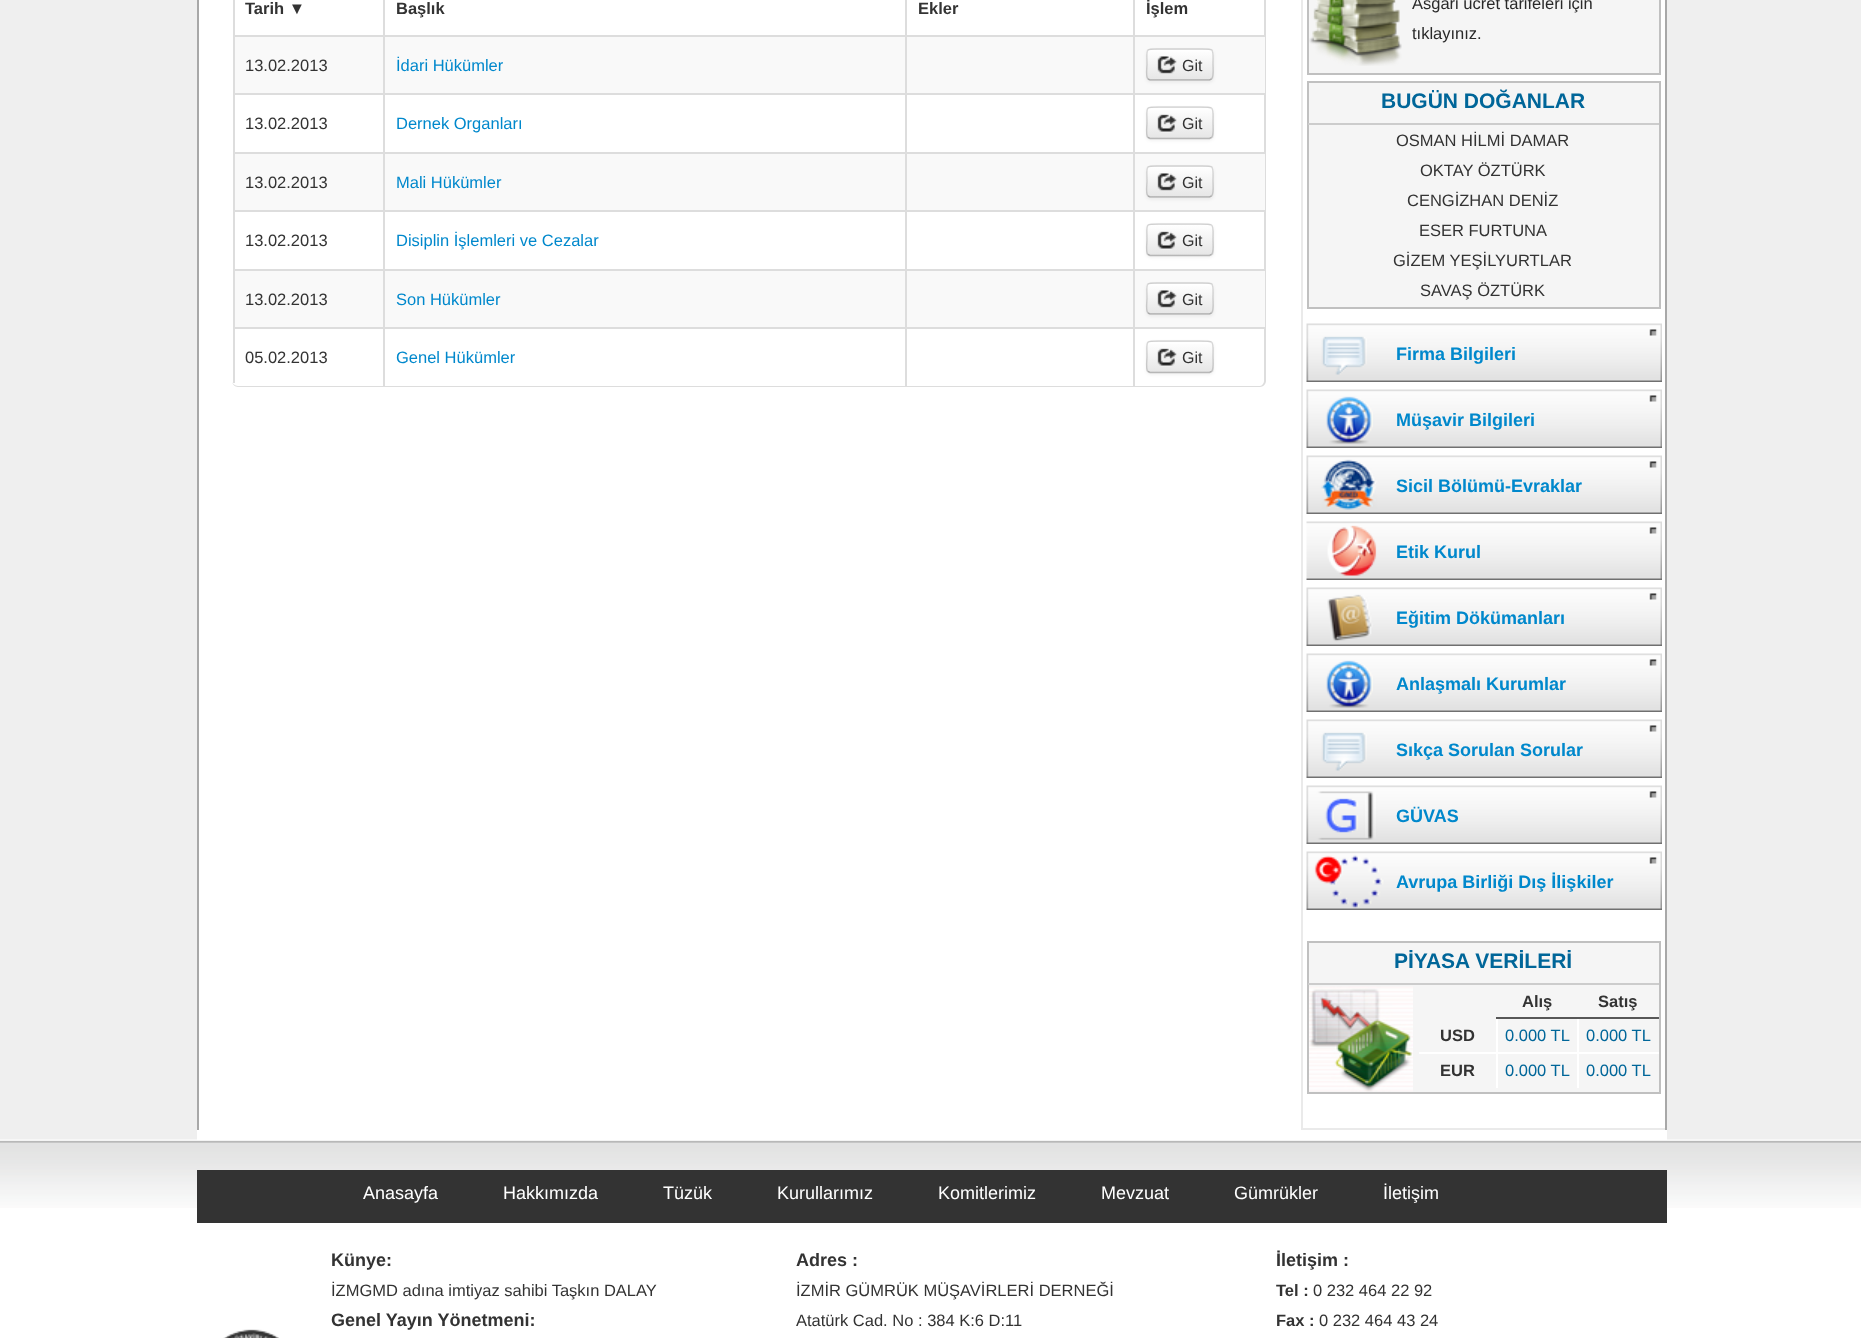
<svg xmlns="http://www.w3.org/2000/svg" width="1861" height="1338">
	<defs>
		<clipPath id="clip1"><rect x="1146" y="48" width="68" height="33" rx="5" /></clipPath>
		<linearGradient id="g1" gradientUnits="userSpaceOnUse" x1="1180" y1="50" x2="1180" y2="80"><stop offset="0" stop-color="#FFFFFF" /><stop offset="1" stop-color="#E6E6E6" /></linearGradient>
		<clipPath id="clip2"><rect x="1146" y="107" width="68" height="33" rx="5" /></clipPath>
		<linearGradient id="g2" gradientUnits="userSpaceOnUse" x1="1180" y1="108" x2="1180" y2="138"><stop offset="0" stop-color="#FFFFFF" /><stop offset="1" stop-color="#E6E6E6" /></linearGradient>
		<clipPath id="clip3"><rect x="1146" y="165" width="68" height="33" rx="5" /></clipPath>
		<linearGradient id="g3" gradientUnits="userSpaceOnUse" x1="1180" y1="167" x2="1180" y2="197"><stop offset="0" stop-color="#FFFFFF" /><stop offset="1" stop-color="#E6E6E6" /></linearGradient>
		<clipPath id="clip4"><rect x="1146" y="224" width="68" height="33" rx="5" /></clipPath>
		<linearGradient id="g4" gradientUnits="userSpaceOnUse" x1="1180" y1="225" x2="1180" y2="255"><stop offset="0" stop-color="#FFFFFF" /><stop offset="1" stop-color="#E6E6E6" /></linearGradient>
		<clipPath id="clip5"><rect x="1146" y="282" width="68" height="33" rx="5" /></clipPath>
		<linearGradient id="g5" gradientUnits="userSpaceOnUse" x1="1180" y1="284" x2="1180" y2="314"><stop offset="0" stop-color="#FFFFFF" /><stop offset="1" stop-color="#E6E6E6" /></linearGradient>
		<clipPath id="clip6"><rect x="1146" y="341" width="68" height="33" rx="5" /></clipPath>
		<linearGradient id="g6" gradientUnits="userSpaceOnUse" x1="1180" y1="342" x2="1180" y2="372"><stop offset="0" stop-color="#FFFFFF" /><stop offset="1" stop-color="#E6E6E6" /></linearGradient>
	</defs>
	<rect width="100%" height="100%" fill="#EFEFEF" />
	<rect x="197" y="0" width="1470" height="1140" fill="#FFFFFF" />
	<rect x="1665" y="0" width="2" height="1130" fill="#A8A8A8" />
	<rect x="197" y="0" width="2" height="1130" fill="#A8A8A8" />
	<path d="M238-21H1260C1263-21 1266-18 1266-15V381C1266 384 1263 387 1260 387H238C235 387 232 384 232 381V-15C232-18 235-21 238-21ZM238-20H1260C1262-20 1264-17 1264-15V381C1264 383 1262 386 1260 386H238C235 386 232 383 232 381V-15C232-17 235-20 238-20Z" fill="#DDDDDD" fill-rule="evenodd" />
	<rect x="233" y="0" width="2" height="35" fill="#DDDDDD" />
	<text x="245" y="14" font-family="Liberation Sans" font-size="16.5" font-weight="700" fill="#333333">Tarih ▼</text>
	<rect x="383" y="0" width="2" height="35" fill="#DDDDDD" />
	<text x="396" y="14" font-family="Liberation Sans" font-size="16.5" font-weight="700" fill="#333333">Başlık</text>
	<rect x="905" y="0" width="2" height="35" fill="#DDDDDD" />
	<text x="918" y="14" font-family="Liberation Sans" font-size="16.5" font-weight="700" fill="#333333">Ekler</text>
	<rect x="1133" y="0" width="2" height="35" fill="#DDDDDD" />
	<text x="1146" y="14" font-family="Liberation Sans" font-size="16.5" font-weight="700" fill="#333333">İşlem</text>
	<rect x="235" y="37" width="148" height="56" fill="#F9F9F9" />
	<rect x="233" y="35" width="1032" height="2" fill="#DDDDDD" />
	<rect x="233" y="35" width="2" height="58" fill="#DDDDDD" />
	<text x="245" y="71" font-family="Liberation Sans" font-size="16.5" fill="#333333">13.02.2013</text>
	<rect x="385" y="37" width="520" height="56" fill="#F9F9F9" />
	<rect x="383" y="35" width="2" height="58" fill="#DDDDDD" />
	<text x="396" y="71" font-family="Liberation Sans" font-size="16.5" fill="#0088CC">İdari Hükümler</text>
	<rect x="907" y="37" width="226" height="56" fill="#F9F9F9" />
	<rect x="905" y="35" width="2" height="58" fill="#DDDDDD" />
	<rect x="1135" y="37" width="130" height="56" fill="#F9F9F9" />
	<rect x="1133" y="35" width="2" height="58" fill="#DDDDDD" />
	<rect x="1146" y="50" width="68" height="33" rx="5" fill="#000000" fill-opacity="0.05" filter="blur(1.5px)" />
	<rect x="1146" y="48" width="68" height="33" rx="5" fill="#F5F5F5" />
	<g clip-path="url(#clip1)">
		<rect x="1146" y="50" width="68" height="30" fill="url(#g1)" />
	</g>
	<path d="M1150 51H1209C1211 51 1212 52 1212 54C1212 48 1204 50 1199 50H1161C1156 50 1148 48 1148 54C1148 52 1149 51 1150 51Z" fill="#FFFFFF" />
	<path d="M1211.5 79L1209.5 80H1150L1148 79" fill="none" stroke="#000000" stroke-opacity="0.25" stroke-width="1.5" />
	<path d="M1148 79C1145.5 77 1147 67.5 1147 64.5C1147 48 1144 49 1160 49H1199C1215.5 49 1213 48 1213 64.5C1213 67.5 1214 77 1211.5 79" fill="none" stroke="#000000" stroke-opacity="0.15" stroke-width="1.5" />
	<image x="1157" y="56" width="20" height="18" href="assets/img1.png" />
	<text x="1182" y="71" font-family="Liberation Sans" font-size="16" fill="#333333">Git</text>
	<rect x="233" y="93" width="1032" height="2" fill="#DDDDDD" />
	<rect x="233" y="93" width="2" height="59" fill="#DDDDDD" />
	<text x="245" y="129" font-family="Liberation Sans" font-size="16.5" fill="#333333">13.02.2013</text>
	<rect x="383" y="93" width="2" height="59" fill="#DDDDDD" />
	<text x="396" y="129" font-family="Liberation Sans" font-size="16.5" fill="#0088CC">Dernek Organları</text>
	<rect x="905" y="93" width="2" height="59" fill="#DDDDDD" />
	<rect x="1133" y="93" width="2" height="59" fill="#DDDDDD" />
	<rect x="1146" y="108" width="68" height="33" rx="5" fill="#000000" fill-opacity="0.05" filter="blur(1.5px)" />
	<rect x="1146" y="107" width="68" height="33" rx="5" fill="#F5F5F5" />
	<g clip-path="url(#clip2)">
		<rect x="1146" y="108" width="68" height="30" fill="url(#g2)" />
	</g>
	<path d="M1150 110H1211L1212 112C1212 106 1204 108 1199 108H1161C1156 108 1148 106 1148 112C1148 111 1149 110 1150 110Z" fill="#FFFFFF" />
	<path d="M1211.5 137.5L1209.5 138.5H1150L1148 137.5" fill="none" stroke="#000000" stroke-opacity="0.25" stroke-width="1.5" />
	<path d="M1148 137.5C1145.5 135.5 1147 126 1147 123C1147 106.5 1144 107 1160 107H1199C1215.5 107 1213 106.5 1213 123C1213 126 1214 135.5 1211.5 137.5" fill="none" stroke="#000000" stroke-opacity="0.15" stroke-width="1.5" />
	<image x="1157" y="114" width="20" height="19" href="assets/img2.png" />
	<text x="1182" y="129" font-family="Liberation Sans" font-size="16" fill="#333333">Git</text>
	<rect x="235" y="154" width="148" height="56" fill="#F9F9F9" />
	<rect x="233" y="152" width="1032" height="2" fill="#DDDDDD" />
	<rect x="233" y="152" width="2" height="58" fill="#DDDDDD" />
	<text x="245" y="188" font-family="Liberation Sans" font-size="16.5" fill="#333333">13.02.2013</text>
	<rect x="385" y="154" width="520" height="56" fill="#F9F9F9" />
	<rect x="383" y="152" width="2" height="58" fill="#DDDDDD" />
	<text x="396" y="188" font-family="Liberation Sans" font-size="16.5" fill="#0088CC">Mali Hükümler</text>
	<rect x="907" y="154" width="226" height="56" fill="#F9F9F9" />
	<rect x="905" y="152" width="2" height="58" fill="#DDDDDD" />
	<rect x="1135" y="154" width="130" height="56" fill="#F9F9F9" />
	<rect x="1133" y="152" width="2" height="58" fill="#DDDDDD" />
	<rect x="1146" y="167" width="68" height="33" rx="5" fill="#000000" fill-opacity="0.05" filter="blur(1.5px)" />
	<rect x="1146" y="165" width="68" height="33" rx="5" fill="#F5F5F5" />
	<g clip-path="url(#clip3)">
		<rect x="1146" y="167" width="68" height="30" fill="url(#g3)" />
	</g>
	<path d="M1150 168H1209C1211 168 1212 169 1212 171C1212 165 1204 167 1199 167H1161C1156 167 1148 165 1148 171C1148 169 1149 168 1150 168Z" fill="#FFFFFF" />
	<path d="M1211.5 196L1209.5 197H1150L1148 196" fill="none" stroke="#000000" stroke-opacity="0.25" stroke-width="1.5" />
	<path d="M1148 196C1145.5 194 1147 184.5 1147 181.5C1147 165 1144 166 1160 166H1199C1215.5 166 1213 165 1213 181.5C1213 184.5 1214 194 1211.5 196" fill="none" stroke="#000000" stroke-opacity="0.15" stroke-width="1.5" />
	<image x="1157" y="173" width="20" height="18" href="assets/img1.png" />
	<text x="1182" y="188" font-family="Liberation Sans" font-size="16" fill="#333333">Git</text>
	<rect x="233" y="210" width="1032" height="2" fill="#DDDDDD" />
	<rect x="233" y="210" width="2" height="59" fill="#DDDDDD" />
	<text x="245" y="246" font-family="Liberation Sans" font-size="16.5" fill="#333333">13.02.2013</text>
	<rect x="383" y="210" width="2" height="59" fill="#DDDDDD" />
	<text x="396" y="246" font-family="Liberation Sans" font-size="16.5" fill="#0088CC">Disiplin İşlemleri ve Cezalar</text>
	<rect x="905" y="210" width="2" height="59" fill="#DDDDDD" />
	<rect x="1133" y="210" width="2" height="59" fill="#DDDDDD" />
	<rect x="1146" y="225" width="68" height="33" rx="5" fill="#000000" fill-opacity="0.05" filter="blur(1.5px)" />
	<rect x="1146" y="224" width="68" height="33" rx="5" fill="#F5F5F5" />
	<g clip-path="url(#clip4)">
		<rect x="1146" y="225" width="68" height="30" fill="url(#g4)" />
	</g>
	<path d="M1211.5 254.5L1209.5 255.5H1150L1148 254.5" fill="none" stroke="#000000" stroke-opacity="0.25" stroke-width="1.5" />
	<path d="M1148 254.5C1145.5 252.5 1147 243 1147 240C1147 223.5 1144 224 1160 224H1199C1215.5 224 1213 223.5 1213 240C1213 243 1214 252.5 1211.5 254.5" fill="none" stroke="#000000" stroke-opacity="0.15" stroke-width="1.5" />
	<image x="1157" y="231" width="20" height="19" href="assets/img2.png" />
	<text x="1182" y="246" font-family="Liberation Sans" font-size="16" fill="#333333">Git</text>
	<rect x="235" y="271" width="148" height="56" fill="#F9F9F9" />
	<rect x="233" y="269" width="1032" height="2" fill="#DDDDDD" />
	<rect x="233" y="269" width="2" height="58" fill="#DDDDDD" />
	<text x="245" y="305" font-family="Liberation Sans" font-size="16.5" fill="#333333">13.02.2013</text>
	<rect x="385" y="271" width="520" height="56" fill="#F9F9F9" />
	<rect x="383" y="269" width="2" height="58" fill="#DDDDDD" />
	<text x="396" y="305" font-family="Liberation Sans" font-size="16.5" fill="#0088CC">Son Hükümler</text>
	<rect x="907" y="271" width="226" height="56" fill="#F9F9F9" />
	<rect x="905" y="269" width="2" height="58" fill="#DDDDDD" />
	<rect x="1135" y="271" width="130" height="56" fill="#F9F9F9" />
	<rect x="1133" y="269" width="2" height="58" fill="#DDDDDD" />
	<rect x="1146" y="284" width="68" height="33" rx="5" fill="#000000" fill-opacity="0.05" filter="blur(1.5px)" />
	<rect x="1146" y="282" width="68" height="33" rx="5" fill="#F5F5F5" />
	<g clip-path="url(#clip5)">
		<rect x="1146" y="284" width="68" height="30" fill="url(#g5)" />
	</g>
	<path d="M1150 285H1209C1211 285 1212 286 1212 288C1212 282 1204 284 1199 284H1161C1156 284 1148 282 1148 288C1148 286 1149 285 1150 285Z" fill="#FFFFFF" />
	<path d="M1211.5 313L1209.5 314H1150L1148 313" fill="none" stroke="#000000" stroke-opacity="0.25" stroke-width="1.5" />
	<path d="M1148 313C1145.5 311 1147 301.5 1147 298.5C1147 282 1144 283 1160 283H1199C1215.5 283 1213 282 1213 298.5C1213 301.5 1214 311 1211.5 313" fill="none" stroke="#000000" stroke-opacity="0.15" stroke-width="1.5" />
	<image x="1157" y="290" width="20" height="18" href="assets/img1.png" />
	<text x="1182" y="305" font-family="Liberation Sans" font-size="16" fill="#333333">Git</text>
	<rect x="233" y="327" width="1032" height="2" fill="#DDDDDD" />
	<rect x="233" y="327" width="2" height="56" fill="#DDDDDD" />
	<text x="245" y="363" font-family="Liberation Sans" font-size="16.5" fill="#333333">05.02.2013</text>
	<rect x="383" y="327" width="2" height="59" fill="#DDDDDD" />
	<text x="396" y="363" font-family="Liberation Sans" font-size="16.5" fill="#0088CC">Genel Hükümler</text>
	<rect x="905" y="327" width="2" height="59" fill="#DDDDDD" />
	<rect x="1133" y="327" width="2" height="59" fill="#DDDDDD" />
	<rect x="1146" y="342" width="68" height="33" rx="5" fill="#000000" fill-opacity="0.05" filter="blur(1.5px)" />
	<rect x="1146" y="341" width="68" height="33" rx="5" fill="#F5F5F5" />
	<g clip-path="url(#clip6)">
		<rect x="1146" y="342" width="68" height="30" fill="url(#g6)" />
	</g>
	<path d="M1150 344H1211L1212 346C1212 340 1204 342 1199 342H1161C1156 342 1148 340 1148 346C1148 345 1149 344 1150 344Z" fill="#FFFFFF" />
	<path d="M1211.5 371.5L1209.5 372.5H1150L1148 371.5" fill="none" stroke="#000000" stroke-opacity="0.25" stroke-width="1.5" />
	<path d="M1148 371.5C1145.5 369.5 1147 360 1147 357C1147 340.5 1144 341 1160 341H1199C1215.5 341 1213 340.5 1213 357C1213 360 1214 369.5 1211.5 371.5" fill="none" stroke="#000000" stroke-opacity="0.15" stroke-width="1.5" />
	<image x="1157" y="348" width="20" height="19" href="assets/img2.png" />
	<text x="1182" y="363" font-family="Liberation Sans" font-size="16" fill="#333333">Git</text>
	<rect x="1301" y="1128" width="364" height="2" fill="#EAEAEA" />
	<rect x="1301" y="0" width="2" height="1130" fill="#EAEAEA" />
	<rect x="1309" y="0" width="350" height="73" fill="#F5F5F5" />
	<image x="1309" y="0" width="93" height="66" href="assets/img3.png" />
	<rect x="1308" y="-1" width="352" height="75" fill="none" stroke="#C0C0C0" stroke-width="2" />
	<g font-family="Liberation Sans" font-size="16.5" fill="#292929">
		<text x="1412" y="9">Asgari ücret tarifeleri için</text>
		<text x="1412" y="39">tıklayınız.</text>
	</g>
	<rect x="1308" y="82" width="352" height="226" fill="#F5F5F5" stroke="#C0C0C0" stroke-width="2" />
	<rect x="1308" y="123" width="351" height="2" fill="#CCCCCC" />
	<text x="1381" y="108" font-family="Liberation Sans" font-size="21" font-weight="700" fill="#006699">BUGÜN DOĞANLAR</text>
	<g font-family="Liberation Sans" font-size="16.5" fill="#333333">
		<text x="1396" y="146">OSMAN HİLMİ DAMAR</text>
		<text x="1420" y="176">OKTAY ÖZTÜRK</text>
		<text x="1407" y="206">CENGİZHAN DENİZ</text>
		<text x="1419" y="236">ESER FURTUNA</text>
		<text x="1393" y="266">GİZEM YEŞİLYURTLAR</text>
		<text x="1420" y="296">SAVAŞ ÖZTÜRK</text>
	</g>
	<image x="1306" y="323" width="356" height="59" href="assets/img4.png" />
	<text x="1396" y="360" font-family="Liberation Sans" font-size="18" font-weight="700" fill="#0088CC">Firma Bilgileri</text>
	<image x="1306" y="389" width="356" height="59" href="assets/img5.png" />
	<text x="1396" y="426" font-family="Liberation Sans" font-size="18" font-weight="700" fill="#0088CC">Müşavir Bilgileri</text>
	<image x="1306" y="455" width="356" height="59" href="assets/img6.png" />
	<text x="1396" y="492" font-family="Liberation Sans" font-size="18" font-weight="700" fill="#0088CC">Sicil Bölümü-Evraklar</text>
	<image x="1306" y="521" width="356" height="59" href="assets/img7.png" />
	<text x="1396" y="558" font-family="Liberation Sans" font-size="18" font-weight="700" fill="#0088CC">Etik Kurul</text>
	<image x="1306" y="587" width="356" height="59" href="assets/img8.png" />
	<text x="1396" y="624" font-family="Liberation Sans" font-size="18" font-weight="700" fill="#0088CC">Eğitim Dökümanları</text>
	<image x="1306" y="653" width="356" height="59" href="assets/img5.png" />
	<text x="1396" y="690" font-family="Liberation Sans" font-size="18" font-weight="700" fill="#0088CC">Anlaşmalı Kurumlar</text>
	<image x="1306" y="719" width="356" height="59" href="assets/img4.png" />
	<text x="1396" y="756" font-family="Liberation Sans" font-size="18" font-weight="700" fill="#0088CC">Sıkça Sorulan Sorular</text>
	<image x="1306" y="785" width="356" height="59" href="assets/img9.png" />
	<text x="1396" y="822" font-family="Liberation Sans" font-size="18" font-weight="700" fill="#0088CC">GÜVAS</text>
	<image x="1306" y="851" width="356" height="59" href="assets/img10.png" />
	<text x="1396" y="888" font-family="Liberation Sans" font-size="18" font-weight="700" fill="#0088CC">Avrupa Birliği Dış İlişkiler</text>
	<rect x="1309" y="943" width="350" height="149" fill="#F5F5F5" />
	<image x="1309" y="986" width="104" height="106" href="assets/img11.png" />
	<rect x="1308" y="942" width="352" height="151" fill="none" stroke="#C0C0C0" stroke-width="2" />
	<rect x="1308" y="983" width="351" height="2" fill="#CCCCCC" />
	<text x="1394" y="968" font-family="Liberation Sans" font-size="21" font-weight="700" fill="#006699">PİYASA VERİLERİ</text>
	<text x="1522" y="1007" font-family="Liberation Sans" font-size="16.5" font-weight="700" fill="#333333">Alış</text>
	<rect x="1577" y="1052" width="2" height="36" fill="#FFFFFF" />
	<rect x="1577" y="1052" width="82" height="2" fill="#FFFFFF" />
	<rect x="1577" y="1017" width="2" height="36" fill="#FFFFFF" />
	<rect x="1496" y="1052" width="2" height="36" fill="#FFFFFF" />
	<rect x="1496" y="1052" width="82" height="2" fill="#FFFFFF" />
	<rect x="1496" y="1017" width="2" height="36" fill="#FFFFFF" />
	<rect x="1496" y="1017" width="163" height="2" fill="#575757" />
	<text x="1598" y="1007" font-family="Liberation Sans" font-size="16.5" font-weight="700" fill="#333333">Satış</text>
	<rect x="1419" y="1052" width="78" height="2" fill="#FFFFFF" />
	<text x="1440" y="1041" font-family="Liberation Sans" font-size="16.5" font-weight="700" fill="#333333">USD</text>
	<g font-family="Liberation Sans" font-size="16.5" fill="#006699">
		<text x="1505" y="1041">0.000 TL</text>
		<text x="1586" y="1041">0.000 TL</text>
	</g>
	<text x="1440" y="1076" font-family="Liberation Sans" font-size="16.5" font-weight="700" fill="#333333">EUR</text>
	<g font-family="Liberation Sans" font-size="16.5" fill="#006699">
		<text x="1505" y="1076">0.000 TL</text>
		<text x="1586" y="1076">0.000 TL</text>
	</g>
	<rect x="0" y="1208" width="1861" height="130" fill="#FFFFFF" />
	<image x="0" y="1139" width="1861" height="69" href="assets/img12.png" />
	<rect x="197" y="1170" width="1470" height="53" fill="#333333" />
	<g font-family="Liberation Sans" font-size="18" fill="#FFFFFF">
		<text x="363" y="1199">Anasayfa</text>
		<text x="503" y="1199">Hakkımızda</text>
		<text x="663" y="1199">Tüzük</text>
		<text x="777" y="1199">Kurullarımız</text>
		<text x="938" y="1199">Komitlerimiz</text>
		<text x="1101" y="1199">Mevzuat</text>
		<text x="1234" y="1199">Gümrükler</text>
		<text x="1383" y="1199">İletişim</text>
	</g>
	<image x="223" y="1329" width="56" height="9" href="assets/img13.png" />
	<text x="331" y="1266" font-family="Liberation Sans" font-size="18" font-weight="700" fill="#333333">Künye:</text>
	<text x="331" y="1296" font-family="Liberation Sans" font-size="16.5" fill="#333333">İZMGMD adına imtiyaz sahibi Taşkın DALAY</text>
	<g font-family="Liberation Sans" font-size="18" font-weight="700" fill="#333333">
		<text x="331" y="1326">Genel Yayın Yönetmeni:</text>
		<text x="796" y="1266">Adres :</text>
	</g>
	<g font-family="Liberation Sans" font-size="16.5" fill="#333333">
		<text x="796" y="1296">İZMİR GÜMRÜK MÜŞAVİRLERİ DERNEĞİ</text>
		<text x="796" y="1326">Atatürk Cad. No : 384 K:6 D:11</text>
	</g>
	<text x="1276" y="1266" font-family="Liberation Sans" font-size="18" font-weight="700" fill="#333333">İletişim :</text>
	<text x="1276" y="1296" font-family="Liberation Sans" font-size="16.5" font-weight="700" fill="#333333">Tel :</text>
	<text x="1313" y="1296" font-family="Liberation Sans" font-size="16.5" fill="#333333">0 232 464 22 92</text>
	<text x="1276" y="1326" font-family="Liberation Sans" font-size="16.5" font-weight="700" fill="#333333">Fax :</text>
	<text x="1319" y="1326" font-family="Liberation Sans" font-size="16.5" fill="#333333">0 232 464 43 24</text>
</svg>
